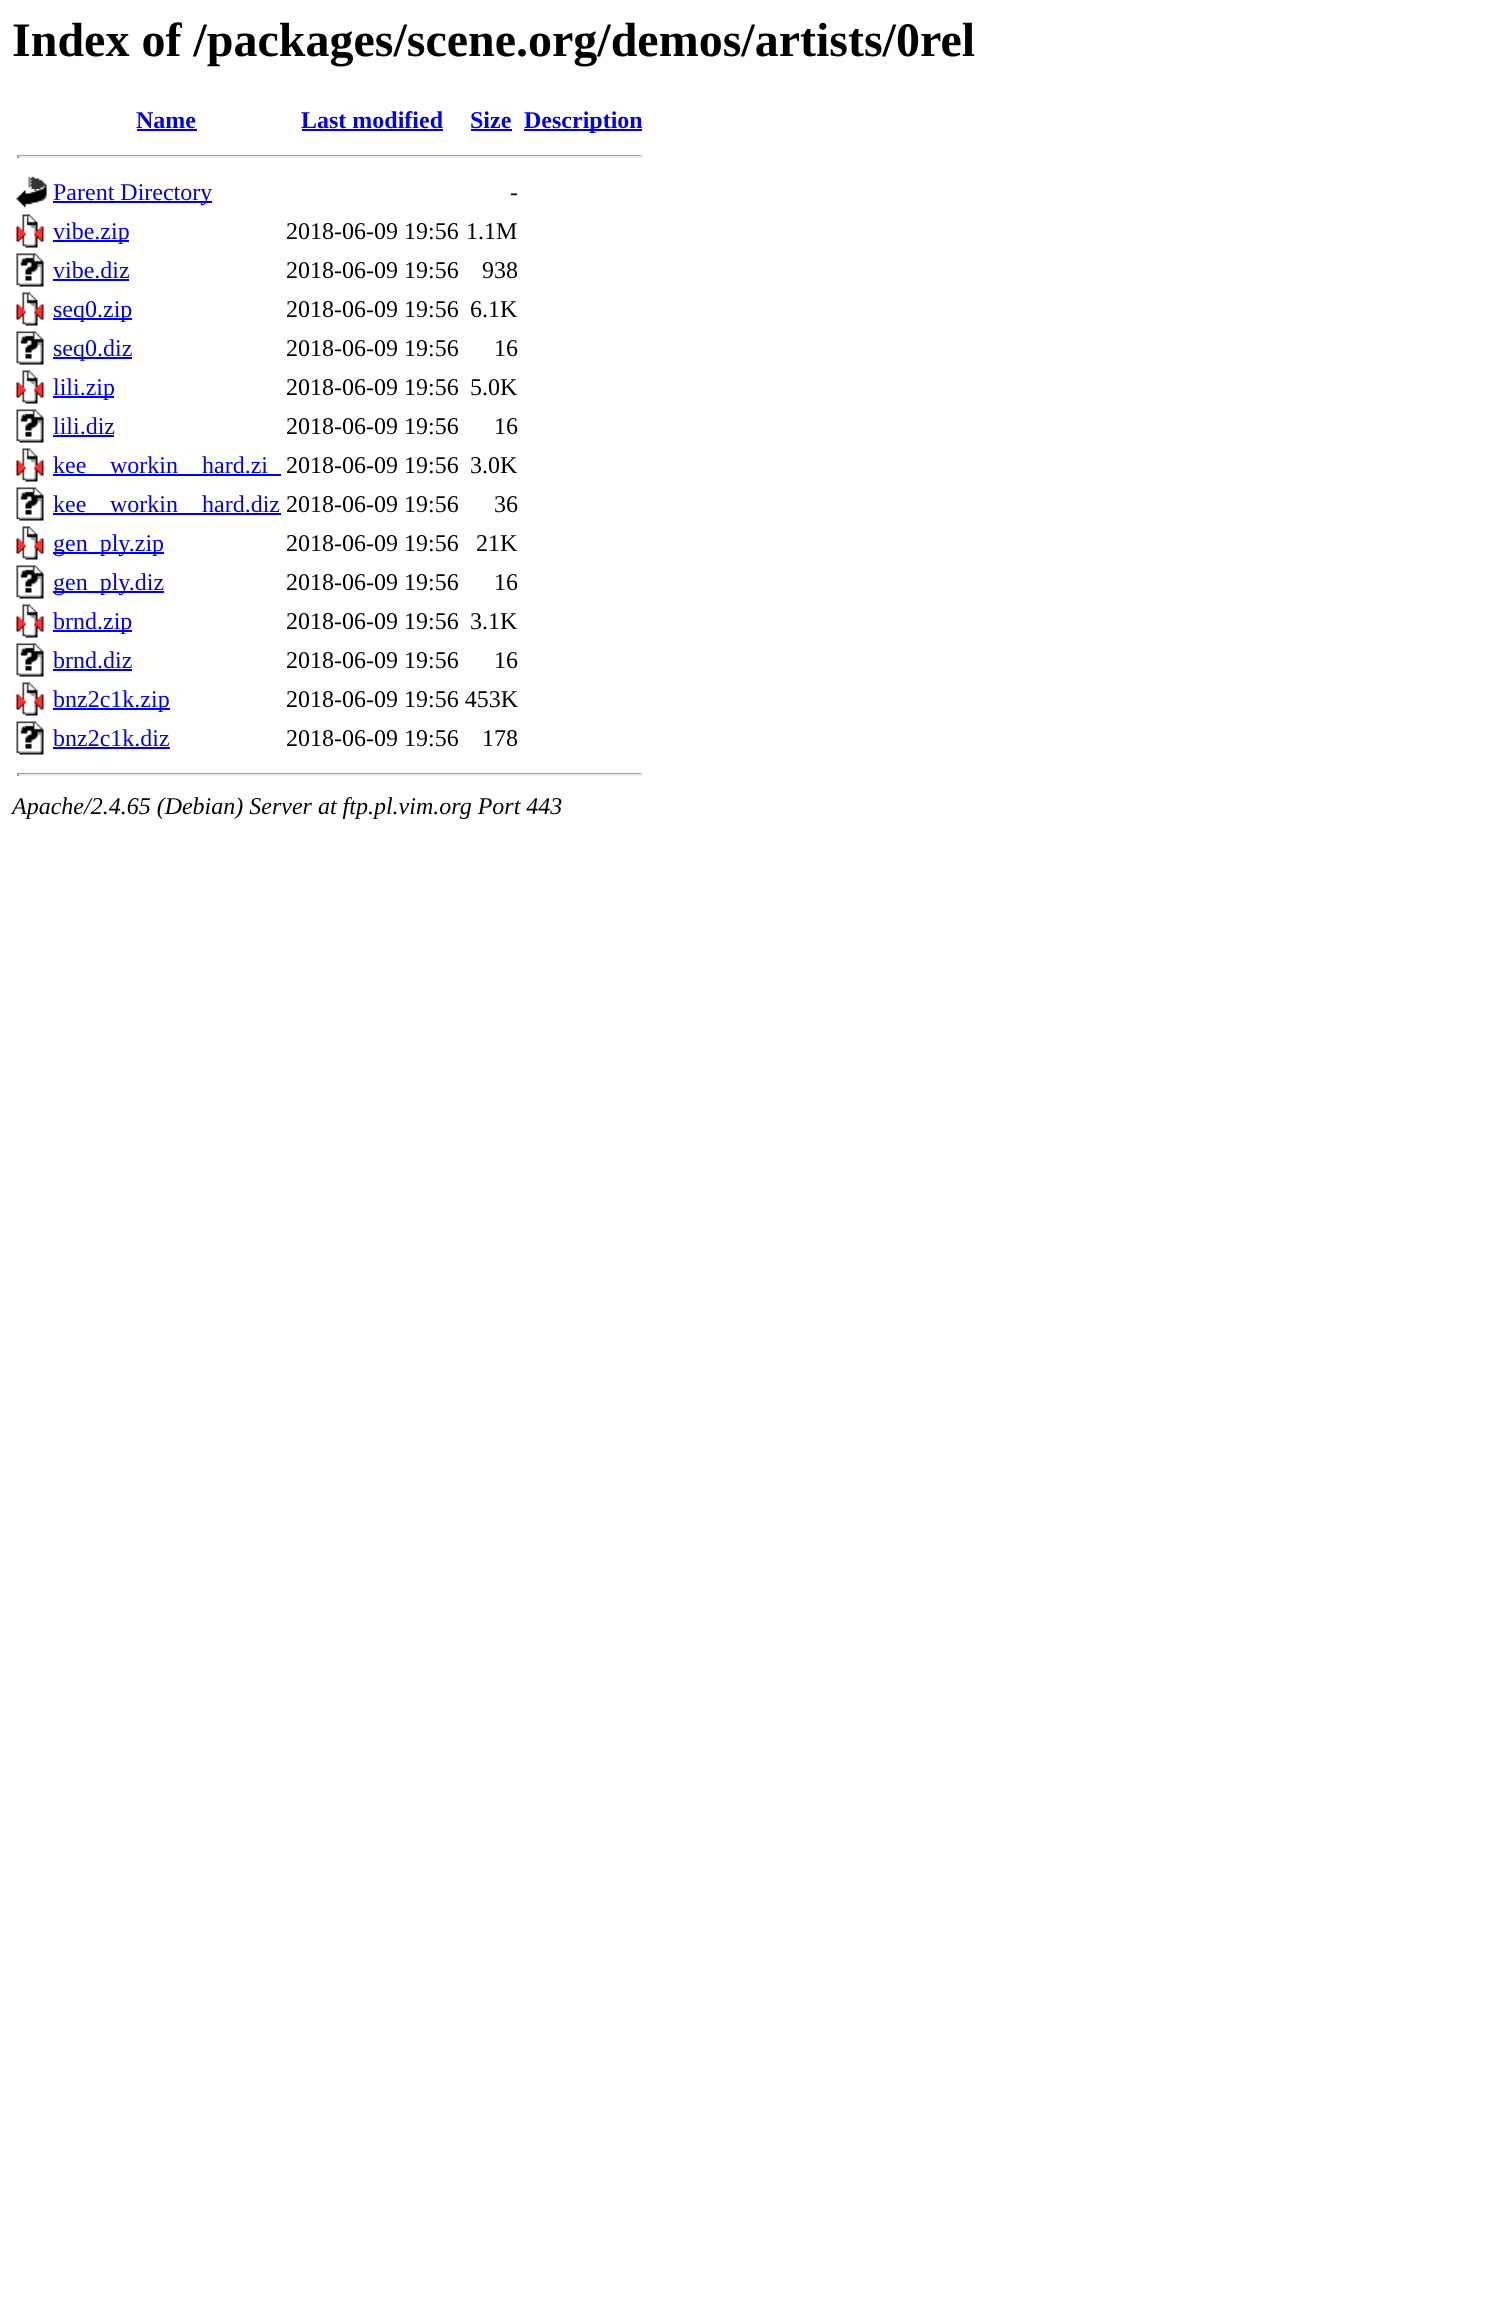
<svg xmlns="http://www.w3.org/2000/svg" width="1495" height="2305">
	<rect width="100%" height="100%" fill="#FFFFFF" />
	<text x="12" y="56" font-family="Liberation Serif" font-size="48" font-weight="700" fill="#000000">Index of /packages/scene.org/demos/artists/0rel</text>
	<text x="136" y="128" font-family="Liberation Serif" font-size="24" font-weight="700" fill="#0000EE">Name</text>
	<rect x="137" y="129" width="60" height="2" fill="#0000EE" />
	<text x="301" y="128" font-family="Liberation Serif" font-size="24" font-weight="700" fill="#0000EE">Last modified</text>
	<rect x="302" y="129" width="141" height="2" fill="#0000EE" />
	<text x="470" y="128" font-family="Liberation Serif" font-size="24" font-weight="700" fill="#0000EE">Size</text>
	<rect x="471" y="129" width="41" height="2" fill="#0000EE" />
	<rect x="524" y="129" width="118" height="2" fill="#0000EE" />
	<text x="524" y="128" font-family="Liberation Serif" font-size="24" font-weight="700" fill="#0000EE">Description</text>
	<rect x="17" y="155" width="625" height="1" fill="#9F9F9F" />
	<rect x="641" y="155" width="2" height="3" fill="#EEEEEE" />
	<rect x="17" y="156" width="625" height="2" fill="#EEEEEE" />
	<rect x="17" y="155" width="2" height="3" fill="#9F9F9F" />
	<image x="16" y="176" width="31" height="32" href="assets/img1.png" />
	<rect x="53" y="201" width="159" height="2" fill="#0000EE" />
	<text x="53" y="200" font-family="Liberation Serif" font-size="24" fill="#0000EE">Parent Directory</text>
	<text x="510" y="200" font-family="Liberation Serif" font-size="24" fill="#000000">-</text>
	<image x="16" y="214" width="28" height="34" href="assets/img2.png" />
	<rect x="53" y="240" width="76" height="2" fill="#0000EE" />
	<text x="53" y="239" font-family="Liberation Serif" font-size="24" fill="#0000EE">vibe.zip</text>
	<g font-family="Liberation Serif" font-size="24" fill="#000000">
		<text x="286" y="239">2018-06-09 19:56</text>
		<text x="466" y="239">1.1M</text>
	</g>
	<image x="16" y="253" width="28" height="34" href="assets/img3.png" />
	<text x="53" y="278" font-family="Liberation Serif" font-size="24" fill="#0000EE">vibe.diz</text>
	<rect x="53" y="279" width="76" height="2" fill="#0000EE" />
	<g font-family="Liberation Serif" font-size="24" fill="#000000">
		<text x="286" y="278">2018-06-09 19:56</text>
		<text x="482" y="278">938</text>
	</g>
	<image x="16" y="292" width="28" height="34" href="assets/img2.png" />
	<rect x="53" y="318" width="79" height="2" fill="#0000EE" />
	<text x="53" y="317" font-family="Liberation Serif" font-size="24" fill="#0000EE">seq0.zip</text>
	<g font-family="Liberation Serif" font-size="24" fill="#000000">
		<text x="286" y="317">2018-06-09 19:56</text>
		<text x="470" y="317">6.1K</text>
	</g>
	<image x="16" y="331" width="28" height="34" href="assets/img3.png" />
	<rect x="53" y="357" width="79" height="2" fill="#0000EE" />
	<text x="53" y="356" font-family="Liberation Serif" font-size="24" fill="#0000EE">seq0.diz</text>
	<g font-family="Liberation Serif" font-size="24" fill="#000000">
		<text x="286" y="356">2018-06-09 19:56</text>
		<text x="494" y="356">16</text>
	</g>
	<image x="16" y="370" width="28" height="34" href="assets/img2.png" />
	<rect x="53" y="396" width="61" height="2" fill="#0000EE" />
	<text x="53" y="395" font-family="Liberation Serif" font-size="24" fill="#0000EE">lili.zip</text>
	<g font-family="Liberation Serif" font-size="24" fill="#000000">
		<text x="286" y="395">2018-06-09 19:56</text>
		<text x="470" y="395">5.0K</text>
	</g>
	<image x="16" y="409" width="28" height="34" href="assets/img3.png" />
	<text x="53" y="434" font-family="Liberation Serif" font-size="24" fill="#0000EE">lili.diz</text>
	<rect x="53" y="435" width="61" height="2" fill="#0000EE" />
	<g font-family="Liberation Serif" font-size="24" fill="#000000">
		<text x="286" y="434">2018-06-09 19:56</text>
		<text x="494" y="434">16</text>
	</g>
	<image x="16" y="448" width="28" height="34" href="assets/img2.png" />
	<text x="53" y="473" font-family="Liberation Serif" font-size="24" fill="#0000EE">kee</text>
	<rect x="53" y="474" width="228" height="2" fill="#0000EE" />
	<g font-family="Liberation Serif" font-size="24" fill="#0000EE">
		<text x="110" y="473">workin</text>
		<text x="202" y="473">hard.zi</text>
	</g>
	<g font-family="Liberation Serif" font-size="24" fill="#000000">
		<text x="286" y="473">2018-06-09 19:56</text>
		<text x="470" y="473">3.0K</text>
	</g>
	<image x="16" y="487" width="28" height="34" href="assets/img3.png" />
	<text x="53" y="512" font-family="Liberation Serif" font-size="24" fill="#0000EE">kee</text>
	<rect x="53" y="513" width="228" height="2" fill="#0000EE" />
	<g font-family="Liberation Serif" font-size="24" fill="#0000EE">
		<text x="110" y="512">workin</text>
		<text x="202" y="512">hard.diz</text>
	</g>
	<g font-family="Liberation Serif" font-size="24" fill="#000000">
		<text x="286" y="512">2018-06-09 19:56</text>
		<text x="494" y="512">36</text>
	</g>
	<image x="16" y="526" width="28" height="34" href="assets/img2.png" />
	<rect x="53" y="552" width="111" height="2" fill="#0000EE" />
	<text x="53" y="551" font-family="Liberation Serif" font-size="24" fill="#0000EE">gen_ply.zip</text>
	<g font-family="Liberation Serif" font-size="24" fill="#000000">
		<text x="286" y="551">2018-06-09 19:56</text>
		<text x="476" y="551">21K</text>
	</g>
	<image x="16" y="565" width="28" height="34" href="assets/img3.png" />
	<rect x="53" y="591" width="111" height="2" fill="#0000EE" />
	<text x="53" y="590" font-family="Liberation Serif" font-size="24" fill="#0000EE">gen_ply.diz</text>
	<g font-family="Liberation Serif" font-size="24" fill="#000000">
		<text x="286" y="590">2018-06-09 19:56</text>
		<text x="494" y="590">16</text>
	</g>
	<image x="16" y="604" width="28" height="34" href="assets/img2.png" />
	<rect x="53" y="630" width="79" height="2" fill="#0000EE" />
	<text x="53" y="629" font-family="Liberation Serif" font-size="24" fill="#0000EE">brnd.zip</text>
	<g font-family="Liberation Serif" font-size="24" fill="#000000">
		<text x="286" y="629">2018-06-09 19:56</text>
		<text x="470" y="629">3.1K</text>
	</g>
	<image x="16" y="643" width="28" height="34" href="assets/img3.png" />
	<text x="53" y="668" font-family="Liberation Serif" font-size="24" fill="#0000EE">brnd.diz</text>
	<rect x="53" y="669" width="79" height="2" fill="#0000EE" />
	<g font-family="Liberation Serif" font-size="24" fill="#000000">
		<text x="286" y="668">2018-06-09 19:56</text>
		<text x="494" y="668">16</text>
	</g>
	<image x="16" y="682" width="28" height="34" href="assets/img2.png" />
	<rect x="53" y="708" width="117" height="2" fill="#0000EE" />
	<text x="53" y="707" font-family="Liberation Serif" font-size="24" fill="#0000EE">bnz2c1k.zip</text>
	<text x="286" y="707" font-family="Liberation Serif" font-size="24" fill="#000000">2018-06-09 19:56 453K</text>
	<image x="16" y="721" width="28" height="34" href="assets/img3.png" />
	<text x="53" y="746" font-family="Liberation Serif" font-size="24" fill="#0000EE">bnz2c1k.diz</text>
	<rect x="53" y="747" width="117" height="2" fill="#0000EE" />
	<g font-family="Liberation Serif" font-size="24" fill="#000000">
		<text x="286" y="746">2018-06-09 19:56</text>
		<text x="482" y="746">178</text>
	</g>
	<rect x="17" y="773" width="625" height="1" fill="#9F9F9F" />
	<rect x="641" y="773" width="2" height="3" fill="#EEEEEE" />
	<rect x="17" y="774" width="625" height="2" fill="#EEEEEE" />
	<rect x="17" y="773" width="2" height="3" fill="#9F9F9F" />
	<text x="12" y="814" font-family="Liberation Serif" font-size="24" font-style="italic" fill="#000000">Apache/2.4.65 (Debian) Server at ftp.pl.vim.org Port 443</text>
</svg>
